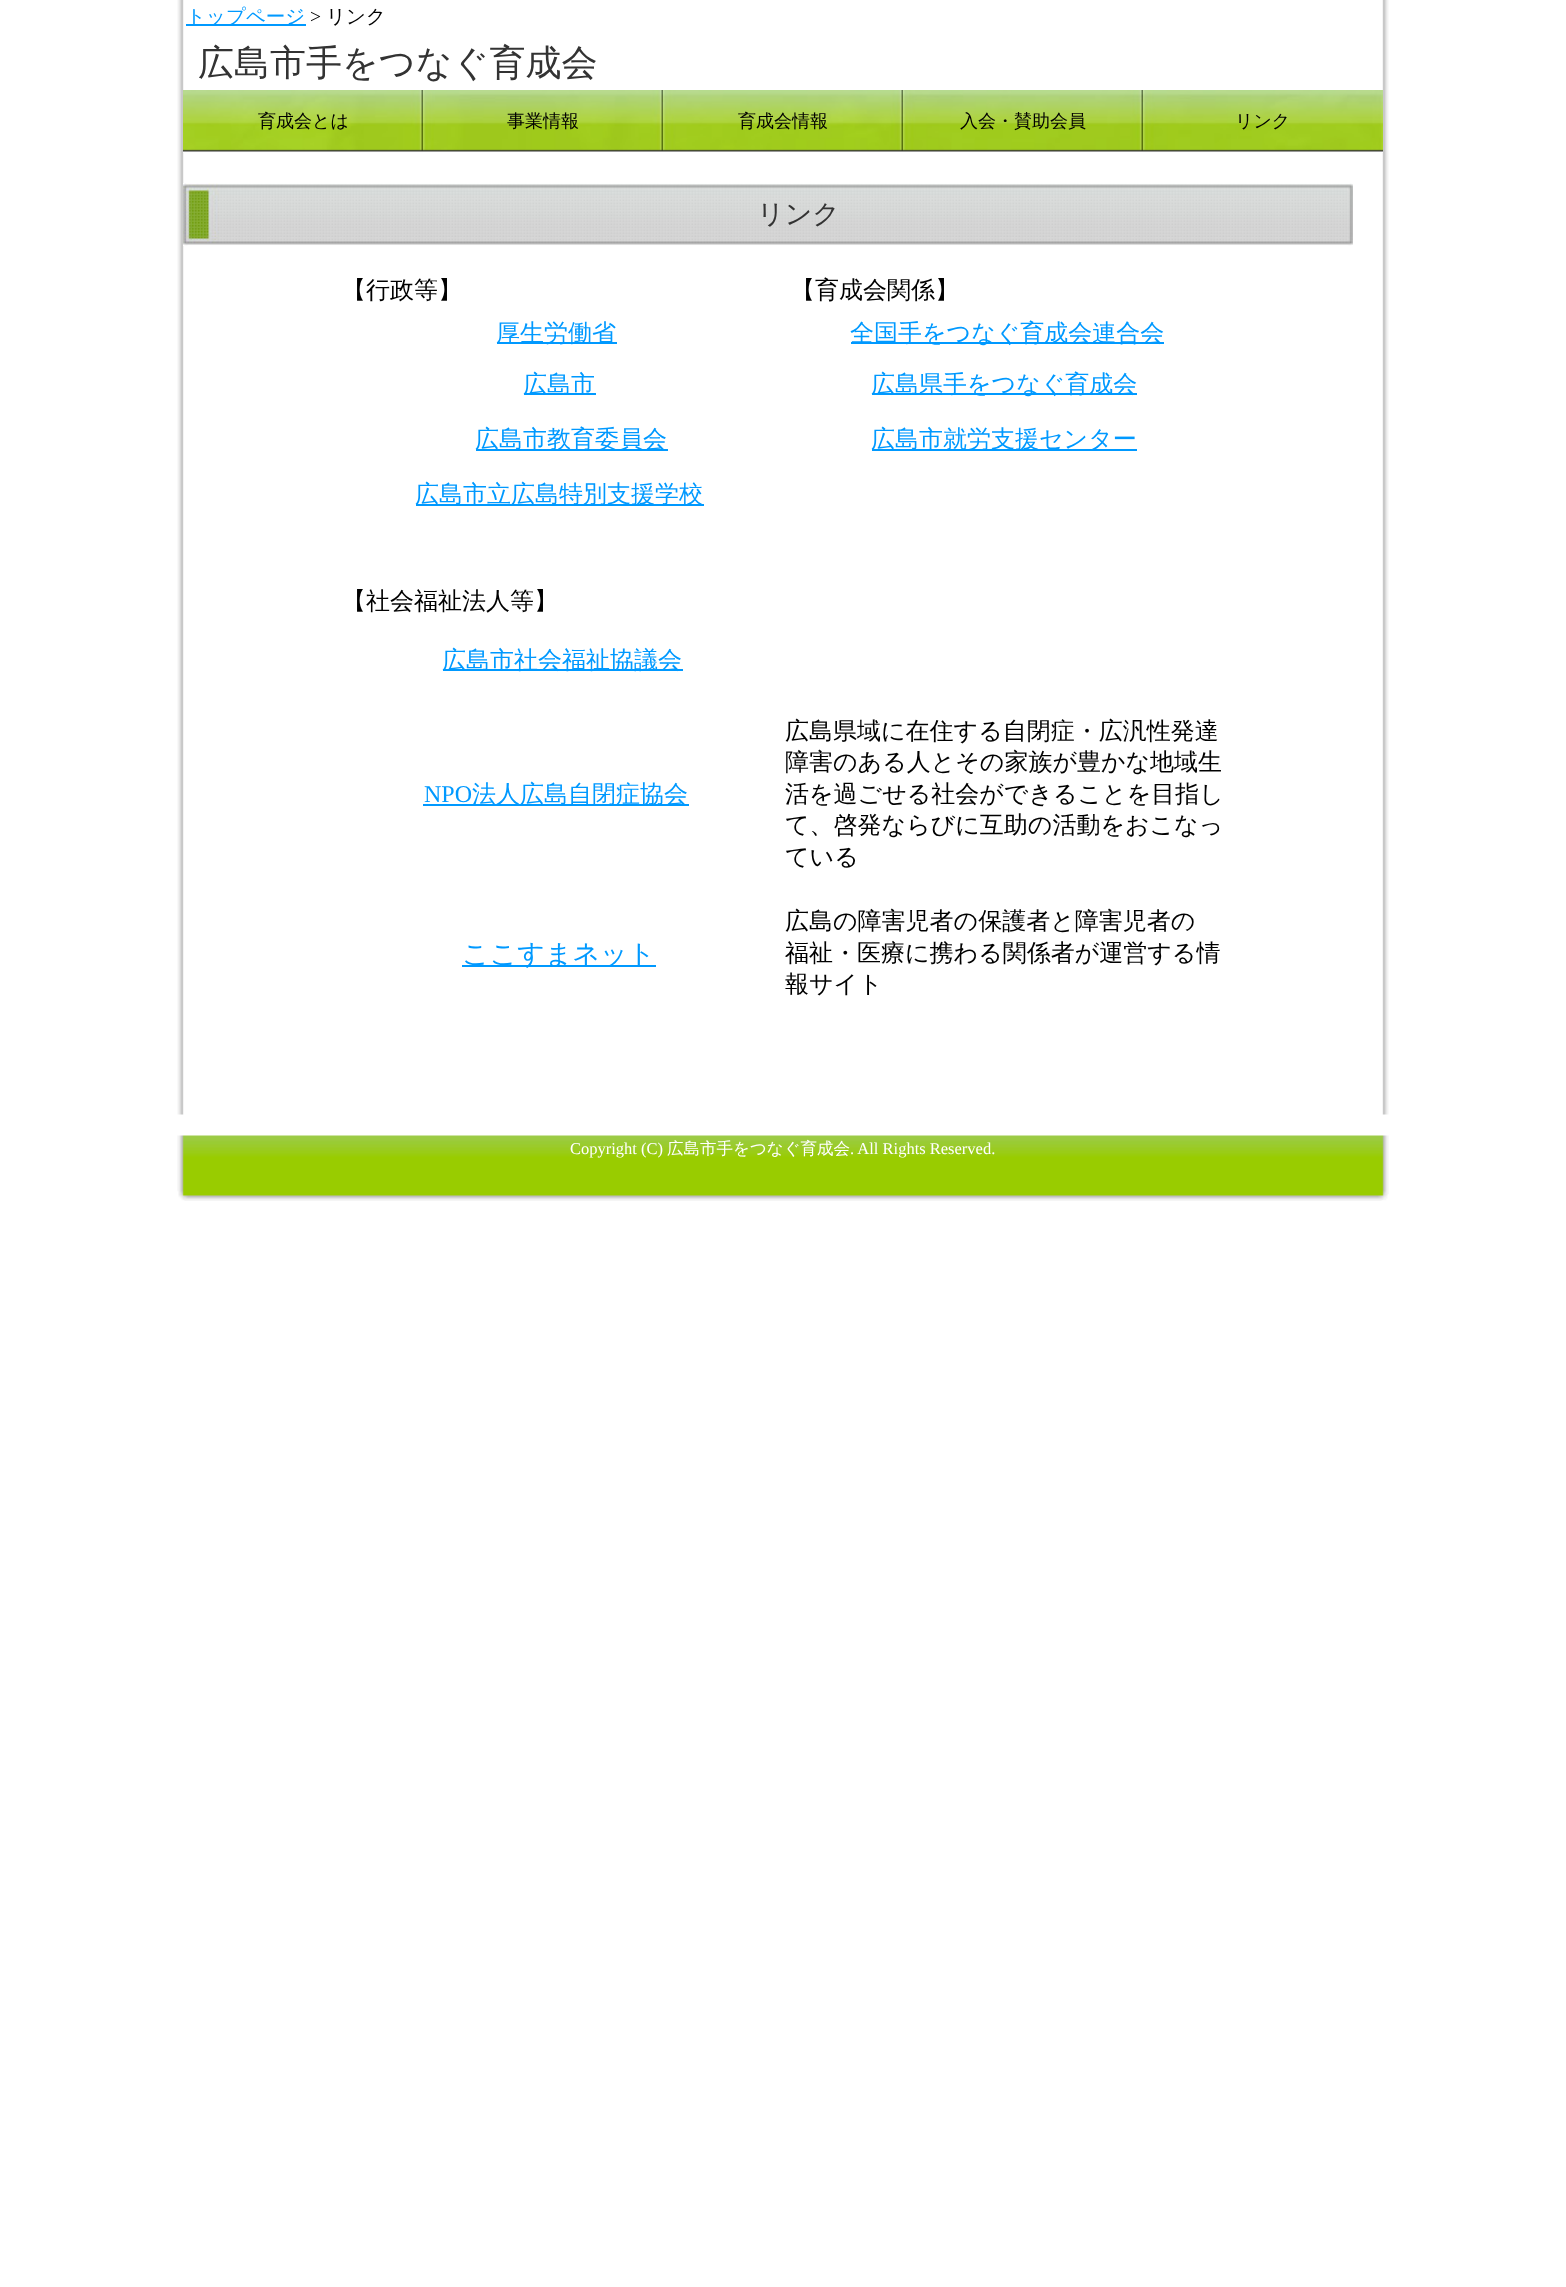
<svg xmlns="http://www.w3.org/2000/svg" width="1566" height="2287">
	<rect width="100%" height="100%" fill="#FFFFFF" />
	<image x="177" y="0" width="1212" height="1115" href="assets/img1.png" />
	<rect x="186" y="24" width="120" height="2" fill="#0099FF" />
	<text x="186" y="23" font-family="WenQuanYi Zen Hei" font-size="19.5" font-weight="500" fill="#0099FF">トップページ</text>
	<text x="310" y="23" font-family="Liberation Serif" font-size="19.5" fill="#000000">&gt;</text>
	<text x="326" y="23" font-family="WenQuanYi Zen Hei" font-size="19.5" font-weight="500" fill="#000000">リンク</text>
	<text x="198" y="75" font-family="WenQuanYi Zen Hei" font-size="36" font-weight="500" fill="#333333">広島市手をつなぐ育成会</text>
	<image x="183" y="90" width="240" height="63" href="assets/img2.png" />
	<text x="258" y="127" font-family="WenQuanYi Zen Hei" font-size="18" font-weight="500" fill="#000000">育成会とは</text>
	<image x="423" y="90" width="240" height="62" href="assets/img3.png" />
	<text x="507" y="127" font-family="WenQuanYi Zen Hei" font-size="18" font-weight="500" fill="#000000">事業情報</text>
	<image x="663" y="90" width="240" height="62" href="assets/img4.png" />
	<text x="738" y="127" font-family="WenQuanYi Zen Hei" font-size="18" font-weight="500" fill="#000000">育成会情報</text>
	<image x="903" y="90" width="240" height="62" href="assets/img5.png" />
	<text x="960" y="127" font-family="WenQuanYi Zen Hei" font-size="18" font-weight="500" fill="#000000">入会・賛助会員</text>
	<image x="1143" y="90" width="240" height="63" href="assets/img6.png" />
	<text x="1235" y="127" font-family="WenQuanYi Zen Hei" font-size="18" font-weight="500" fill="#000000">リンク</text>
	<image x="183" y="183" width="1170" height="63" href="assets/img7.png" />
	<text x="757" y="223" font-family="WenQuanYi Zen Hei" font-size="27" font-weight="500" fill="#333333">リンク</text>
	<g font-family="WenQuanYi Zen Hei" font-size="24" font-weight="500" fill="#000000">
		<text x="342" y="298">【行政等】</text>
		<text x="791" y="298">【育成会関係】</text>
	</g>
	<rect x="497" y="342" width="120" height="2" fill="#0099FF" />
	<text x="496" y="341" font-family="WenQuanYi Zen Hei" font-size="24" font-weight="500" fill="#0099FF">厚生労働省</text>
	<rect x="851" y="342" width="313" height="2" fill="#0099FF" />
	<text x="850" y="341" font-family="WenQuanYi Zen Hei" font-size="24" font-weight="500" fill="#0099FF">全国手をつなぐ育成会連合会</text>
	<rect x="524" y="393" width="72" height="2" fill="#0099FF" />
	<text x="523" y="392" font-family="WenQuanYi Zen Hei" font-size="24" font-weight="500" fill="#0099FF">広島市</text>
	<rect x="872" y="393" width="265" height="2" fill="#0099FF" />
	<text x="871" y="392" font-family="WenQuanYi Zen Hei" font-size="24" font-weight="500" fill="#0099FF">広島県手をつなぐ育成会</text>
	<rect x="476" y="449" width="192" height="2" fill="#0099FF" />
	<text x="475" y="447" font-family="WenQuanYi Zen Hei" font-size="24" font-weight="500" fill="#0099FF">広島市教育委員会</text>
	<rect x="872" y="449" width="265" height="2" fill="#0099FF" />
	<text x="871" y="447" font-family="WenQuanYi Zen Hei" font-size="24" font-weight="500" fill="#0099FF">広島市就労支援センター</text>
	<rect x="416" y="504" width="288" height="2" fill="#0099FF" />
	<text x="415" y="502" font-family="WenQuanYi Zen Hei" font-size="24" font-weight="500" fill="#0099FF">広島市立広島特別支援学校</text>
	<text x="342" y="609" font-family="WenQuanYi Zen Hei" font-size="24" font-weight="500" fill="#000000">【社会福祉法人等】</text>
	<rect x="443" y="669" width="240" height="2" fill="#0099FF" />
	<text x="442" y="668" font-family="WenQuanYi Zen Hei" font-size="24" font-weight="500" fill="#0099FF">広島市社会福祉協議会</text>
	<text x="424" y="802" font-family="Liberation Serif" font-size="24" fill="#0099FF">NPO</text>
	<rect x="423" y="804" width="266" height="2" fill="#0099FF" />
	<text x="472" y="802" font-family="WenQuanYi Zen Hei" font-size="24" font-weight="500" fill="#0099FF">法人広島自閉症協会</text>
	<g font-family="WenQuanYi Zen Hei" font-size="24" font-weight="500" fill="#000000">
		<text x="785" y="739">広島県域に在住する自閉症・広汎性発達</text>
		<text x="785" y="770">障害のある人とその家族が豊かな地域生</text>
		<text x="785" y="802">活を過ごせる社会ができることを目指し</text>
		<text x="785" y="833">て、啓発ならびに互助の活動をおこなっ</text>
		<text x="785" y="865">ている</text>
	</g>
	<rect x="462" y="965" width="194" height="2" fill="#0099FF" />
	<text x="462" y="963" font-family="WenQuanYi Zen Hei" font-size="27" font-weight="500" fill="#0099FF">ここすまネット</text>
	<g font-family="WenQuanYi Zen Hei" font-size="24" font-weight="500" fill="#000000">
		<text x="785" y="929">広島の障害児者の保護者と障害児者の</text>
		<text x="785" y="961">福祉・医療に携わる関係者が運営する情</text>
		<text x="785" y="992">報サイト</text>
	</g>
	<image x="177" y="1135" width="1212" height="66" href="assets/img8.png" />
	<text x="570" y="1154" font-family="Liberation Serif" font-size="16.5" fill="#FFFFFF">Copyright (C)</text>
	<text x="667" y="1154" font-family="WenQuanYi Zen Hei" font-size="16.5" font-weight="500" fill="#FFFFFF">広島市手をつなぐ育成会</text>
	<text x="850" y="1154" font-family="Liberation Serif" font-size="16.5" fill="#FFFFFF">. All Rights Reserved.</text>
</svg>
